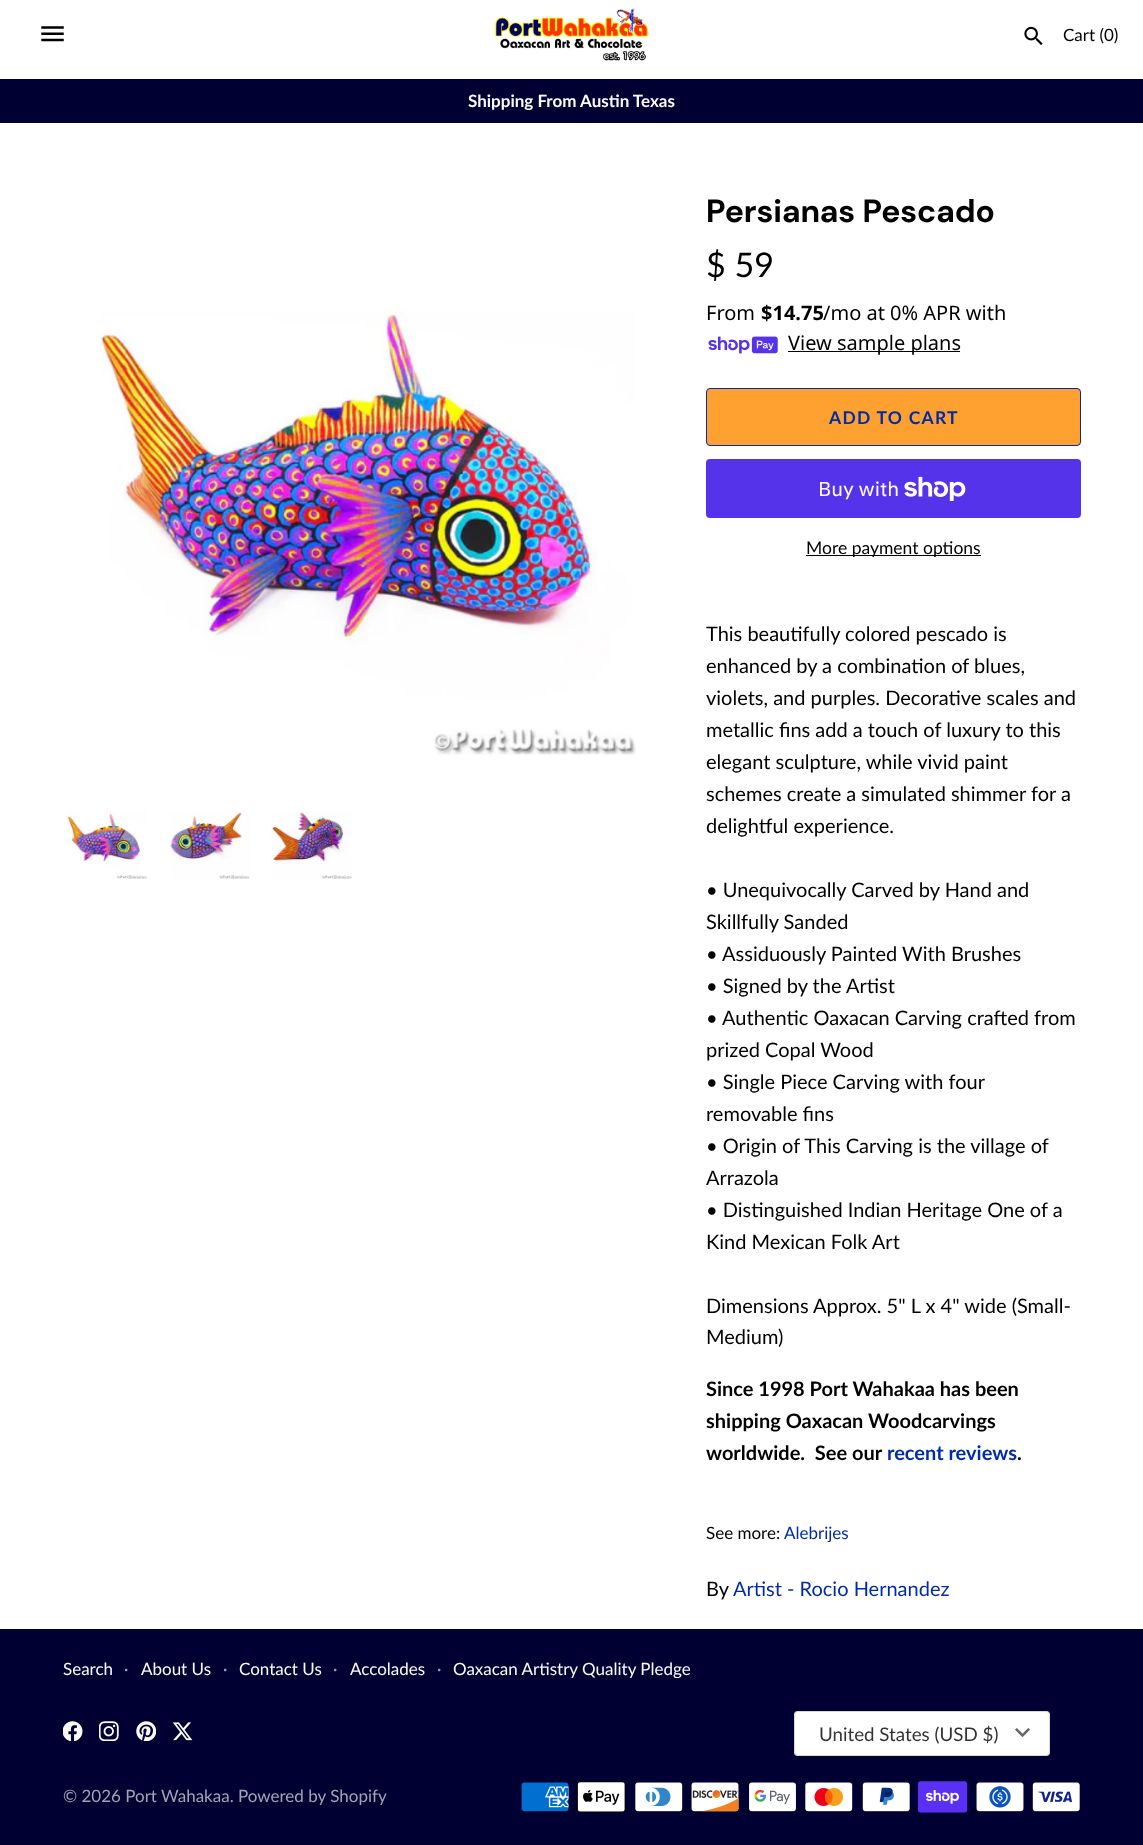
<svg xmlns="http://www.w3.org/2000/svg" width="1143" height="1845">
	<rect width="100%" height="100%" fill="#FFFFFF" />
	<image x="41" y="26" width="23" height="16" href="assets/img1.png" />
	<image x="494" y="8" width="155" height="53" href="assets/img2.png" />
	<image x="1024" y="26" width="19" height="19" href="assets/img3.png" />
	<text x="1063" y="41" font-family="Lato" font-size="17" fill="#000000">Cart (0)</text>
	<rect x="0" y="79" width="1143" height="44" fill="#000033" />
	<text x="468" y="107" font-family="Lato" font-size="17" font-weight="700" fill="#FAFAFA">Shipping From Austin Texas</text>
	<image x="100" y="311" width="536" height="444" href="assets/img4.png" />
	<image x="67" y="811" width="80" height="68" href="assets/img5.png" />
	<image x="170" y="811" width="80" height="68" href="assets/img6.png" />
	<image x="271" y="811" width="81" height="68" href="assets/img7.png" />
	<text x="706" y="222" font-family="DM Sans" font-size="32" font-weight="700" fill="#000000">Persianas Pescado</text>
	<text x="706" y="277" font-family="Lato" font-size="34" fill="#000000">$ 59</text>
	<text x="706" y="320" font-family="Noto Sans" font-size="20" fill="#000000">From</text>
	<text x="761" y="320" font-family="Noto Sans" font-size="20" font-weight="700" fill="#000000">$14.75</text>
	<text x="823" y="320" font-family="Noto Sans" font-size="20" fill="#000000">/mo at 0% APR with</text>
	<image x="708" y="336" width="70" height="18" href="assets/img8.png" />
	<rect x="788" y="351" width="172" height="1" fill="#000000" />
	<text x="788" y="350" font-family="Noto Sans" font-size="20" fill="#000000">View sample plans</text>
	<rect x="706.5" y="388.5" width="374" height="57" rx="3.5" fill="#FFA131" stroke="#002CA9" />
	<text x="829" y="424" font-family="Lato" font-size="17.5" font-weight="700" letter-spacing="1.25" fill="#002CA9">ADD TO CART</text>
	<rect x="706" y="459" width="375" height="59" rx="4" fill="#5433EB" />
	<text x="818" y="496" font-family="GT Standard" font-size="20" fill="#FAFAFA">Buy with</text>
	<image x="904" y="476" width="62" height="25" href="assets/img9.png" />
	<rect x="806" y="555" width="175" height="1" fill="#000000" />
	<text x="806" y="554" font-family="Lato" font-size="17.5" fill="#000000">More payment options</text>
	<g font-family="Lato" font-size="20" fill="#000000">
		<text x="706" y="641">This beautifully colored pescado is</text>
		<text x="706" y="673">enhanced by a combination of blues,</text>
		<text x="706" y="705">violets, and purples. Decorative scales and</text>
		<text x="706" y="737">metallic fins add a touch of luxury to this</text>
		<text x="706" y="769">elegant sculpture, while vivid paint</text>
		<text x="706" y="801">schemes create a simulated shimmer for a</text>
		<text x="706" y="833">delightful experience.</text>
		<text x="706" y="897">• Unequivocally Carved by Hand and</text>
		<text x="706" y="929">Skillfully Sanded</text>
		<text x="706" y="961">• Assiduously Painted With Brushes</text>
		<text x="706" y="993">• Signed by the Artist</text>
		<text x="706" y="1025">• Authentic Oaxacan Carving crafted from</text>
		<text x="706" y="1057">prized Copal Wood</text>
		<text x="706" y="1089">• Single Piece Carving with four</text>
		<text x="706" y="1121">removable fins</text>
		<text x="706" y="1153">• Origin of This Carving is the village of</text>
		<text x="706" y="1185">Arrazola</text>
		<text x="706" y="1217">• Distinguished Indian Heritage One of a</text>
		<text x="706" y="1249">Kind Mexican Folk Art</text>
		<text x="706" y="1313">Dimensions Approx. 5" L x 4" wide (Small-</text>
		<text x="706" y="1344">Medium)</text>
	</g>
	<g font-family="Lato" font-size="20" font-weight="700" fill="#000000">
		<text x="706" y="1396">Since 1998 Port Wahakaa has been</text>
		<text x="706" y="1428">shipping Oaxacan Woodcarvings</text>
		<text x="706" y="1460" xml:space="preserve">worldwide.  See our</text>
	</g>
	<text x="887" y="1460" font-family="Lato" font-size="20" font-weight="700" fill="#002CA9">recent reviews</text>
	<text x="1017" y="1460" font-family="Lato" font-size="20" font-weight="700" fill="#000000">.</text>
	<text x="706" y="1539" font-family="Lato" font-size="17" fill="#000000">See more:</text>
	<text x="784" y="1539" font-family="Lato" font-size="17" fill="#002CA9">Alebrijes</text>
	<text x="706" y="1596" font-family="Lato" font-size="20" fill="#000000">By</text>
	<text x="733" y="1596" font-family="Lato" font-size="20" fill="#002CA9">Artist - Rocio Hernandez</text>
	<rect x="0" y="1629" width="1143" height="216" fill="#000033" />
	<text x="63" y="1675" font-family="Lato" font-size="17" fill="#FAFAFA">Search</text>
	<text x="124" y="1675" font-family="Lato" font-size="17" fill="#A3A3B4">·</text>
	<text x="141" y="1675" font-family="Lato" font-size="17" fill="#FAFAFA">About Us</text>
	<text x="223" y="1675" font-family="Lato" font-size="17" fill="#A3A3B4">·</text>
	<text x="239" y="1675" font-family="Lato" font-size="17" fill="#FAFAFA">Contact Us</text>
	<text x="333" y="1675" font-family="Lato" font-size="17" fill="#A3A3B4">·</text>
	<text x="350" y="1675" font-family="Lato" font-size="17" fill="#FAFAFA">Accolades</text>
	<text x="437" y="1675" font-family="Lato" font-size="17" fill="#A3A3B4">·</text>
	<text x="453" y="1675" font-family="Lato" font-size="17" fill="#FAFAFA">Oaxacan Artistry Quality Pledge</text>
	<image x="63" y="1721" width="20" height="20" href="assets/img10.png" />
	<image x="99" y="1721" width="20" height="20" href="assets/img11.png" />
	<image x="136" y="1721" width="20" height="20" href="assets/img12.png" />
	<image x="173" y="1722" width="20" height="19" href="assets/img13.png" />
	<rect x="794" y="1711" width="256" height="45" rx="4" fill="#FFFFFF" />
	<rect x="794.5" y="1711.5" width="255" height="44" rx="3.5" fill="none" stroke="#000000" stroke-opacity="0.15" />
	<text x="819" y="1741" font-family="Lato" font-size="18.75" fill="#333333">United States (USD $)</text>
	<image x="1015" y="1728" width="15" height="10" href="assets/img14.png" />
	<text x="63" y="1802" font-family="Lato" font-size="17" fill="#A3A3B4">© 2026 Port Wahakaa. Powered by Shopify</text>
	<image x="521" y="1782" width="48" height="30" href="assets/img15.png" />
	<image x="576" y="1781" width="50" height="32" href="assets/img16.png" />
	<image x="635" y="1782" width="48" height="30" href="assets/img17.png" />
	<image x="691" y="1782" width="48" height="30" href="assets/img18.png" />
	<image x="749" y="1782" width="47" height="30" href="assets/img19.png" />
	<image x="805" y="1782" width="48" height="30" href="assets/img20.png" />
	<image x="862" y="1782" width="48" height="30" href="assets/img21.png" />
	<image x="918" y="1781" width="50" height="32" href="assets/img22.png" />
	<image x="976" y="1782" width="48" height="30" href="assets/img23.png" />
	<image x="1032" y="1782" width="48" height="30" href="assets/img24.png" />
</svg>
